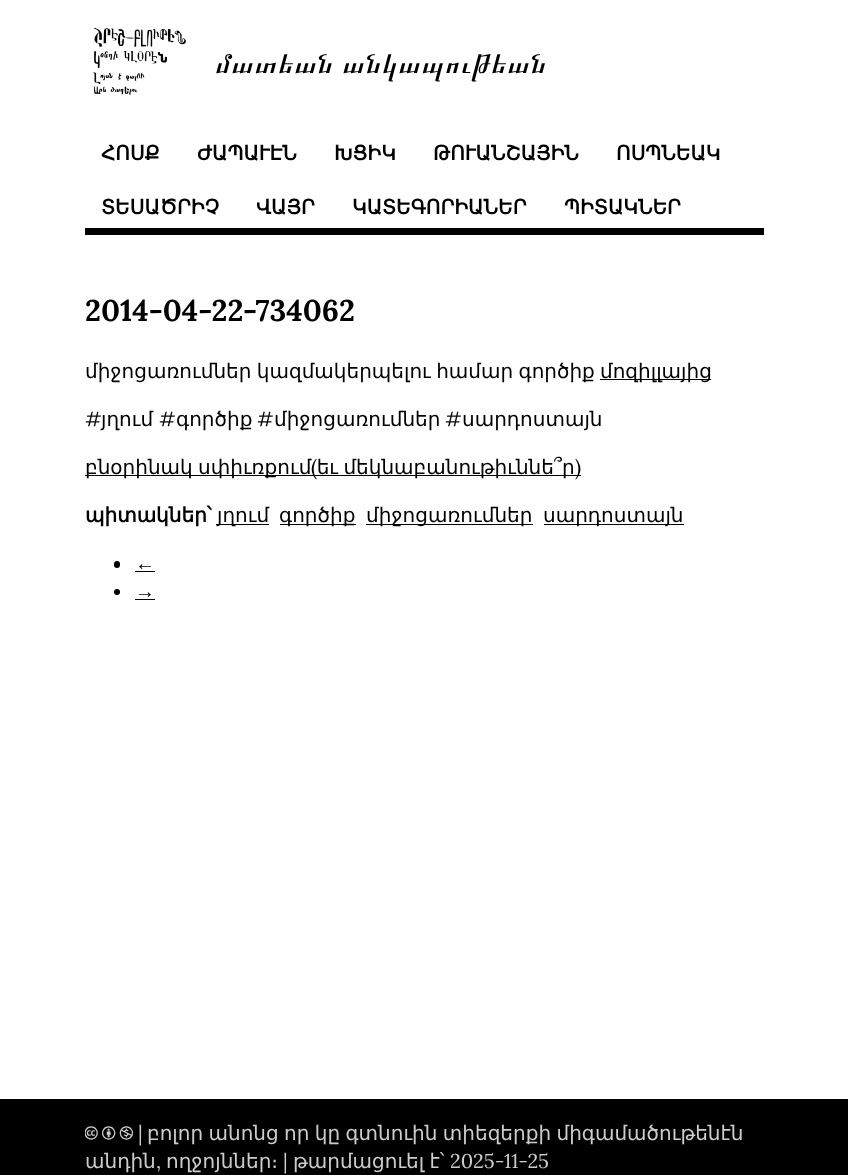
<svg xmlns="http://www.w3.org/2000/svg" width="848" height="1175">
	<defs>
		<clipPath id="clip1"><rect x="85" y="1099" width="679" height="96" /></clipPath>
	</defs>
	<rect width="100%" height="100%" fill="#FFFFFF" />
	<image x="93" y="28" width="93" height="67" href="assets/img1.png" />
	<text x="215" y="73" font-family="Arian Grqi" font-size="30" fill="#000000">մատեան անկապութեան</text>
	<g font-family="DejaVu Sans" font-size="20" font-weight="700" fill="#000000">
		<text x="101" y="160">ՀՈՍՔ</text>
		<text x="197" y="160">ԺԱՊԱՒԷՆ</text>
		<text x="334" y="160">ԽՑԻԿ</text>
		<text x="433" y="160">ԹՈՒԱՆՇԱՅԻՆ</text>
		<text x="616" y="160">ՈՍՊՆԵԱԿ</text>
		<text x="101" y="214">ՏԵՍԱԾՐԻՉ</text>
		<text x="256" y="214">ՎԱՅՐ</text>
		<text x="352" y="214">ԿԱՏԵԳՈՐԻԱՆԵՐ</text>
		<text x="564" y="214">ՊԻՏԱԿՆԵՐ</text>
	</g>
	<rect x="85" y="228" width="679" height="7" fill="#000000" />
	<text x="85" y="321" font-family="Lora" font-size="30" font-weight="700" fill="#000000">2014-04-22-734062</text>
	<text x="85" y="378" word-spacing="-1" font-family="DejaVu Sans" font-size="20" fill="#000000">միջոցառումներ կազմակերպելու համար գործիք</text>
	<rect x="600" y="379" width="111" height="1" fill="#000000" />
	<text x="600" y="378" font-family="DejaVu Sans" font-size="20" fill="#000000">մոզիլլայից</text>
	<text x="85" y="426" font-family="Lora" font-size="20" fill="#000000">#</text>
	<text x="101" y="426" font-family="DejaVu Sans" font-size="20" fill="#000000">յղում</text>
	<text x="159" y="426" font-family="Lora" font-size="20" fill="#000000">#</text>
	<text x="176" y="426" font-family="DejaVu Sans" font-size="20" fill="#000000">գործիք</text>
	<text x="257" y="426" font-family="Lora" font-size="20" fill="#000000">#</text>
	<text x="274" y="426" font-family="DejaVu Sans" font-size="20" fill="#000000">միջոցառումներ</text>
	<text x="445" y="426" font-family="Lora" font-size="20" fill="#000000">#</text>
	<text x="462" y="426" font-family="DejaVu Sans" font-size="20" fill="#000000">սարդոստայն</text>
	<rect x="85" y="475" width="496" height="1" fill="#000000" />
	<text x="85" y="474" word-spacing="-1" font-family="DejaVu Sans" font-size="20" fill="#000000">բնօրինակ սփիւռքում եւ մեկնաբանութիւննե՞ր</text>
	<g font-family="Lora" font-size="20" fill="#000000">
		<text x="311" y="474">(</text>
		<text x="575" y="474">)</text>
	</g>
	<text x="85" y="522" font-family="DejaVu Sans" font-size="20" font-weight="700" fill="#000000">պիտակներ՝</text>
	<rect x="216" y="524" width="53" height="1" fill="#000000" />
	<text x="217" y="522" font-family="DejaVu Sans" font-size="20" fill="#000000">յղում</text>
	<rect x="280" y="524" width="76" height="1" fill="#000000" />
	<text x="279" y="522" font-family="DejaVu Sans" font-size="20" fill="#000000">գործիք</text>
	<rect x="366" y="524" width="167" height="1" fill="#000000" />
	<text x="366" y="522" font-family="DejaVu Sans" font-size="20" fill="#000000">միջոցառումներ</text>
	<rect x="544" y="524" width="140" height="1" fill="#000000" />
	<text x="543" y="522" font-family="DejaVu Sans" font-size="20" fill="#000000">սարդոստայն</text>
	<rect x="114" y="561" width="6" height="7" rx="3" fill="#000000" />
	<text x="135" y="570" font-family="Liberation Serif" font-size="20" fill="#000000">←</text>
	<rect x="135" y="571" width="20" height="1" fill="#000000" />
	<circle cx="117" cy="592" r="3" fill="#000000" />
	<text x="135" y="598" font-family="Liberation Serif" font-size="20" fill="#000000">→</text>
	<rect x="135" y="599" width="20" height="1" fill="#000000" />
	<rect x="0" y="1099" width="848" height="76" fill="#000000" />
	<g clip-path="url(#clip1)">
		<text x="85" y="1140" word-spacing="-7" font-family="Fira Code" font-size="20" fill="#CCCCCC">🅭 🅯 🄏</text>
	</g>
	<text x="138" y="1140" font-family="Lora" font-size="20" fill="#CCCCCC">|</text>
	<g font-family="DejaVu Sans" font-size="20" fill="#CCCCCC">
		<text x="147" y="1140" word-spacing="-1">բոլոր անոնց որ կը գտնուին տիեզերքի միգամածութենէն</text>
		<text x="85" y="1168">անդին</text>
	</g>
	<text x="156" y="1168" font-family="Lora" font-size="20" fill="#CCCCCC">,</text>
	<text x="166" y="1168" font-family="DejaVu Sans" font-size="20" fill="#CCCCCC">ողջոյններ։</text>
	<text x="283" y="1168" font-family="Lora" font-size="20" fill="#CCCCCC">|</text>
	<text x="293" y="1168" word-spacing="-1" font-family="DejaVu Sans" font-size="20" fill="#CCCCCC">թարմացուել է՝</text>
	<text x="450" y="1168" font-family="Lora" font-size="20" fill="#CCCCCC">2025-11-25</text>
</svg>
